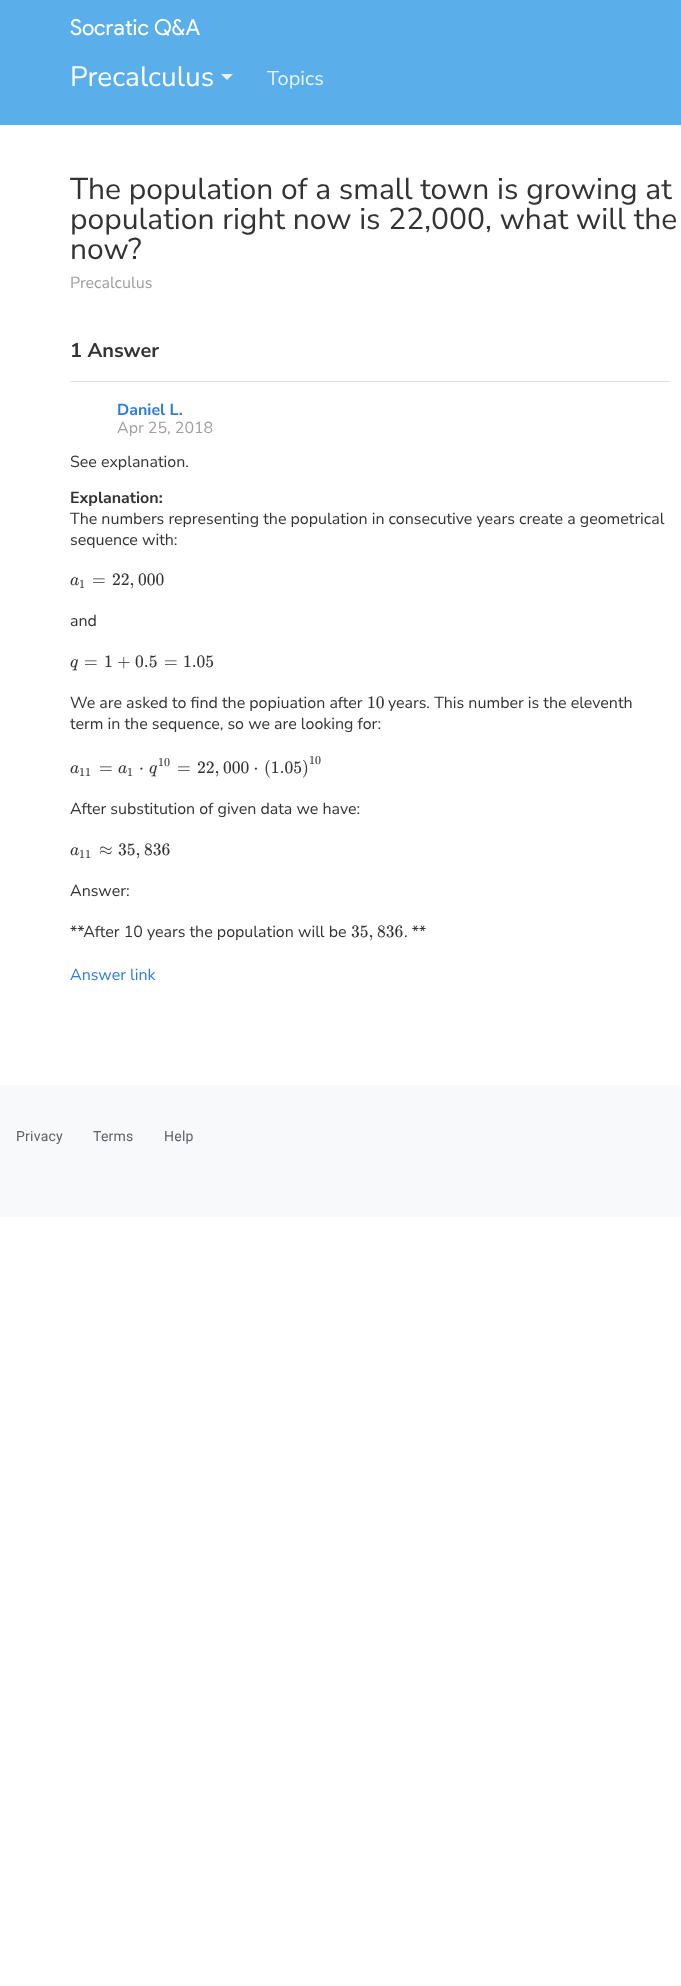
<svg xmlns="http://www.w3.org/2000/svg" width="681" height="1986">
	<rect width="100%" height="100%" fill="#FFFFFF" />
	<rect x="0" y="0" width="681" height="125" fill="#5AAFEB" />
	<image x="70" y="18" width="130" height="18" href="assets/img1.png" />
	<text x="70" y="86" font-family="Nunito Sans" font-size="28" fill="#FFFFFF">Precalculus</text>
	<path d="M221 74H233L227 80Z" fill="#E6F3FC" />
	<text x="267" y="85" font-family="Nunito Sans" font-size="20" fill="#E6F3FC">Topics</text>
	<g font-family="Nunito Sans" font-size="30" fill="#333333">
		<text x="70" y="199">The population of a small town is growing at</text>
		<text x="70" y="229">population right now is 22,000, what will the</text>
		<text x="70" y="259">now?</text>
	</g>
	<text x="70" y="288" font-family="Nunito Sans" font-size="16" fill="#9E9E9E">Precalculus</text>
	<rect x="70" y="381" width="600" height="1" fill="#E1E1E1" />
	<text x="70" y="357" font-family="Nunito Sans" font-size="20" font-weight="700" fill="#333333">1 Answer</text>
	<text x="117" y="415" font-family="Nunito Sans" font-size="16" font-weight="700" fill="#2D7DDC">Daniel L.</text>
	<text x="117" y="433" font-family="Nunito Sans" font-size="16" fill="#9E9E9E">Apr 25, 2018</text>
	<text x="70" y="467" font-family="Nunito Sans" font-size="16" fill="#333333">See explanation.</text>
	<text x="70" y="503" font-family="Nunito Sans" font-size="16" font-weight="700" fill="#333333">Explanation:</text>
	<g font-family="Nunito Sans" font-size="16" fill="#333333">
		<text x="70" y="524">The numbers representing the population in consecutive years create a geometrical</text>
		<text x="70" y="545">sequence with:</text>
	</g>
	<text x="70" y="585" font-family="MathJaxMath" font-size="17.5" font-style="italic" fill="#333333">a</text>
	<text x="79" y="588" font-family="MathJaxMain" font-size="12" fill="#333333">1</text>
	<g font-family="MathJaxMain" font-size="17.5" fill="#333333">
		<text x="92" y="585">=</text>
		<text x="112" y="585">22,</text>
		<text x="138" y="585">000</text>
	</g>
	<text x="70" y="626" font-family="Nunito Sans" font-size="16" fill="#333333">and</text>
	<text x="70" y="667" font-family="MathJaxMath" font-size="17.5" font-style="italic" fill="#333333">q</text>
	<g font-family="MathJaxMain" font-size="17.5" fill="#333333">
		<text x="84" y="667">=</text>
		<text x="104" y="667">1 + 0.5</text>
		<text x="164" y="667">=</text>
		<text x="183" y="667">1.05</text>
	</g>
	<text x="70" y="708" font-family="Nunito Sans" font-size="16" fill="#333333">We are asked to find the popiuation after</text>
	<text x="367" y="708" font-family="MathJaxMain" font-size="17.5" fill="#333333">10</text>
	<g font-family="Nunito Sans" font-size="16" fill="#333333">
		<text x="388" y="708">years. This number is the eleventh</text>
		<text x="70" y="729">term in the sequence, so we are looking for:</text>
	</g>
	<text x="70" y="773" font-family="MathJaxMath" font-size="17.5" font-style="italic" fill="#333333">a</text>
	<text x="79" y="776" font-family="MathJaxMain" font-size="12" fill="#333333">11</text>
	<text x="99" y="773" font-family="MathJaxMain" font-size="17.5" fill="#333333">=</text>
	<text x="118" y="773" font-family="MathJaxMath" font-size="17.5" font-style="italic" fill="#333333">a</text>
	<text x="127" y="776" font-family="MathJaxMain" font-size="12" fill="#333333">1</text>
	<text x="139" y="773" font-family="MathJaxMain" font-size="17.5" fill="#333333">⋅</text>
	<text x="158" y="766" font-family="MathJaxMain" font-size="12" fill="#333333">10</text>
	<text x="149" y="773" font-family="MathJaxMath" font-size="17.5" font-style="italic" fill="#333333">q</text>
	<g font-family="MathJaxMain" font-size="17.5" fill="#333333">
		<text x="177" y="773">=</text>
		<text x="197" y="773">22,</text>
		<text x="223" y="773">000 ⋅</text>
		<text x="264" y="773">(1.05)</text>
	</g>
	<text x="309" y="764" font-family="MathJaxMain" font-size="12" fill="#333333">10</text>
	<text x="70" y="814" font-family="Nunito Sans" font-size="16" fill="#333333">After substitution of given data we have:</text>
	<text x="70" y="855" font-family="MathJaxMath" font-size="17.5" font-style="italic" fill="#333333">a</text>
	<text x="79" y="858" font-family="MathJaxMain" font-size="12" fill="#333333">11</text>
	<g font-family="MathJaxMain" font-size="17.5" fill="#333333">
		<text x="99" y="855">≈</text>
		<text x="118" y="855">35,</text>
		<text x="144" y="855">836</text>
	</g>
	<g font-family="Nunito Sans" font-size="16" fill="#333333">
		<text x="70" y="896">Answer:</text>
		<text x="70" y="937">**After 10 years the population will be</text>
	</g>
	<g font-family="MathJaxMain" font-size="17.5" fill="#333333">
		<text x="351" y="937">35,</text>
		<text x="377" y="937">836</text>
	</g>
	<text x="404" y="937" font-family="Nunito Sans" font-size="16" fill="#333333">. **</text>
	<text x="70" y="980" font-family="Nunito Sans" font-size="16" fill="#2D7DDC">Answer link</text>
	<rect x="0" y="1085" width="681" height="132" fill="#F8F9FA" />
	<g font-family="Roboto" font-size="14" letter-spacing="0.25" fill="#5E6369">
		<text x="16" y="1141">Privacy</text>
		<text x="93" y="1141">Terms</text>
		<text x="164" y="1141">Help</text>
	</g>
</svg>
